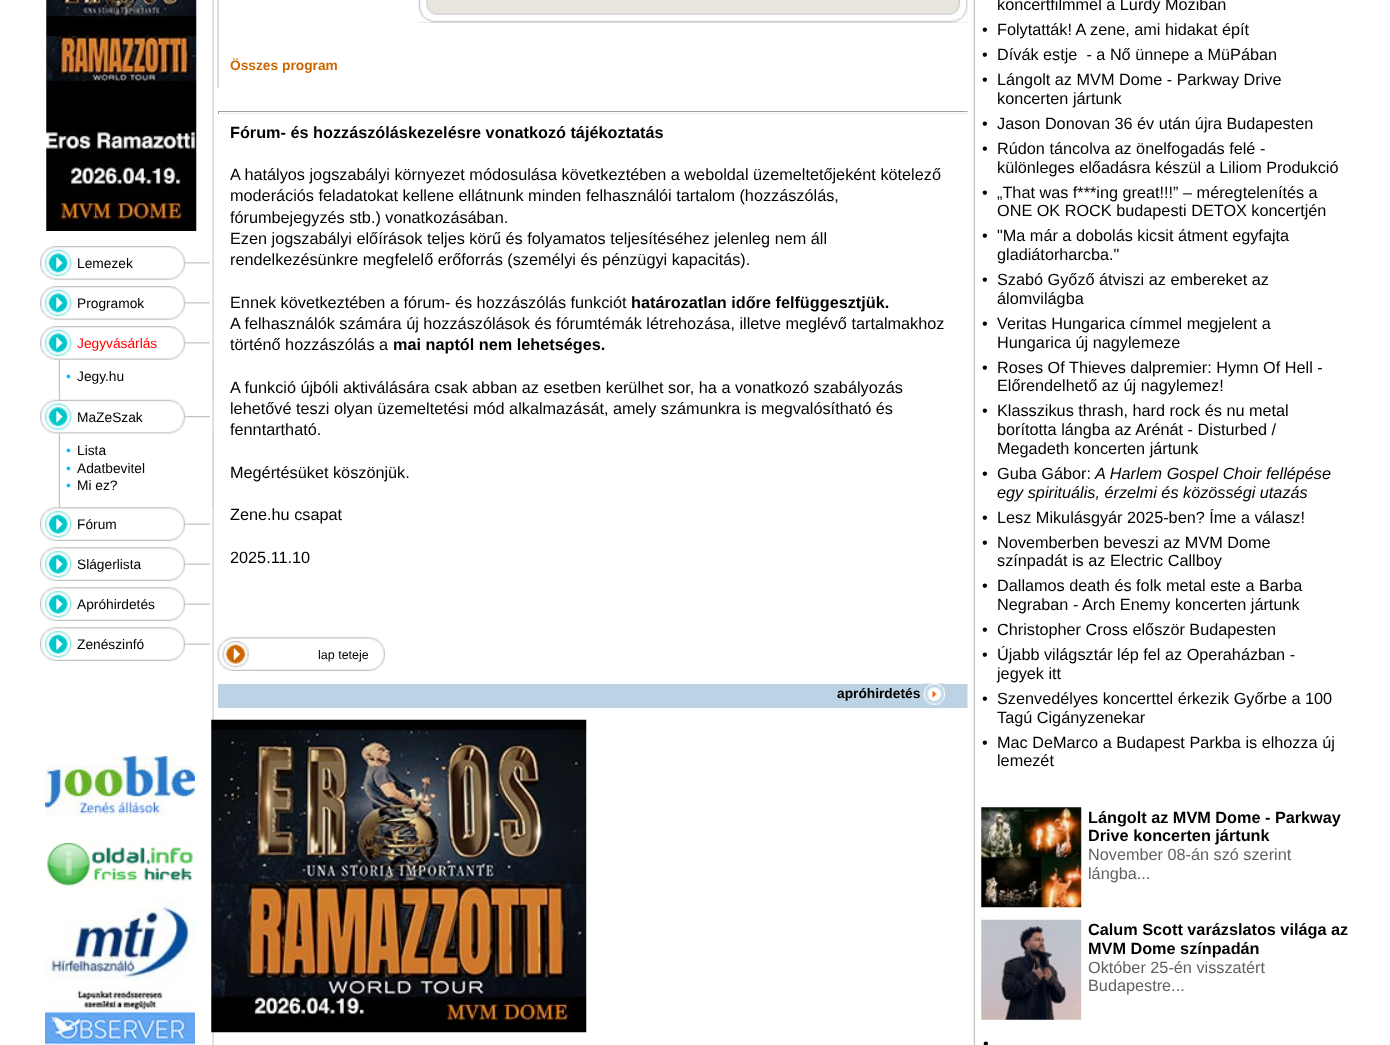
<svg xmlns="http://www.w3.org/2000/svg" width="1390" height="1045">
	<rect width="100%" height="100%" fill="#FFFFFF" />
	<image x="212" y="0" width="2" height="1045" href="assets/img1.png" />
	<image x="46" y="0" width="151" height="231" href="assets/img2.png" />
	<image x="40" y="246" width="147" height="34" href="assets/img3.png" />
	<text x="77" y="268" font-family="Liberation Sans" font-size="13.75" fill="#000000">Lemezek</text>
	<image x="186" y="262" width="24" height="2" href="assets/img4.png" />
	<image x="40" y="286" width="147" height="34" href="assets/img3.png" />
	<text x="77" y="308" font-family="Liberation Sans" font-size="13.75" fill="#000000">Programok</text>
	<image x="186" y="302" width="24" height="2" href="assets/img4.png" />
	<image x="40" y="326" width="147" height="34" href="assets/img3.png" />
	<text x="77" y="348" font-family="Liberation Sans" font-size="13.75" fill="#FF0000">Jegyvásárlás</text>
	<image x="186" y="342" width="24" height="2" href="assets/img4.png" />
	<image x="58" y="360" width="156" height="40" href="assets/img5.png" />
	<text x="66" y="381" font-family="Liberation Sans" font-size="13.75" fill="#01BAFF">•</text>
	<text x="77" y="381" font-family="Liberation Sans" font-size="13.75" fill="#000000">Jegy.hu</text>
	<image x="40" y="399" width="147" height="35" href="assets/img6.png" />
	<text x="77" y="422" font-family="Liberation Sans" font-size="13.75" fill="#000000">MaZeSzak</text>
	<image x="186" y="416" width="24" height="2" href="assets/img7.png" />
	<image x="58" y="433" width="156" height="75" href="assets/img8.png" />
	<text x="66" y="455" font-family="Liberation Sans" font-size="13.75" fill="#01BAFF">•</text>
	<text x="77" y="455" font-family="Liberation Sans" font-size="13.75" fill="#000000">Lista</text>
	<text x="66" y="473" font-family="Liberation Sans" font-size="13.75" fill="#01BAFF">•</text>
	<text x="77" y="473" font-family="Liberation Sans" font-size="13.75" fill="#000000">Adatbevitel</text>
	<text x="66" y="490" font-family="Liberation Sans" font-size="13.75" fill="#01BAFF">•</text>
	<text x="77" y="490" font-family="Liberation Sans" font-size="13.75" fill="#000000">Mi ez?</text>
	<image x="40" y="507" width="147" height="34" href="assets/img9.png" />
	<text x="77" y="529" font-family="Liberation Sans" font-size="13.75" fill="#000000">Fórum</text>
	<image x="186" y="523" width="24" height="2" href="assets/img10.png" />
	<image x="40" y="547" width="147" height="34" href="assets/img11.png" />
	<text x="77" y="569" font-family="Liberation Sans" font-size="13.75" fill="#000000">Slágerlista</text>
	<image x="186" y="563" width="24" height="2" href="assets/img10.png" />
	<image x="40" y="587" width="147" height="34" href="assets/img11.png" />
	<text x="77" y="609" font-family="Liberation Sans" font-size="13.75" fill="#000000">Apróhirdetés</text>
	<image x="186" y="603" width="24" height="2" href="assets/img10.png" />
	<image x="40" y="627" width="147" height="34" href="assets/img11.png" />
	<text x="77" y="649" font-family="Liberation Sans" font-size="13.75" fill="#000000">Zenészinfó</text>
	<image x="186" y="643" width="24" height="2" href="assets/img10.png" />
	<image x="45" y="756" width="150" height="60" href="assets/img12.png" />
	<image x="47" y="842" width="146" height="46" href="assets/img13.png" />
	<image x="45" y="899" width="150" height="81" href="assets/img14.png" />
	<image x="45" y="986" width="150" height="59" href="assets/img15.png" />
	<rect x="419" y="0" width="549" height="23" fill="#E9E5DF" />
	<image x="418" y="0" width="10" height="6" href="assets/img16.png" />
	<image x="958" y="0" width="10" height="6" href="assets/img17.png" />
	<image x="418" y="6" width="17" height="17" href="assets/img18.png" />
	<image x="435" y="13" width="517" height="10" href="assets/img19.png" />
	<image x="951" y="6" width="17" height="17" href="assets/img20.png" />
	<image x="217" y="0" width="2" height="89" href="assets/img21.png" />
	<text x="230" y="70" font-family="Liberation Sans" font-size="13.75" font-weight="700" fill="#CC6600">Összes program</text>
	<rect x="218" y="684" width="750" height="24" fill="#BBD3E4" />
	<image x="967" y="0" width="9" height="1045" href="assets/img27.png" />
	<rect x="218" y="111" width="750" height="1" fill="#9F9F9F" />
	<rect x="966" y="111" width="1" height="3" fill="#EEEEEE" />
	<rect x="218" y="113" width="750" height="1" fill="#EEEEEE" />
	<rect x="218" y="111" width="1" height="3" fill="#9F9F9F" />
	<text x="230" y="138" font-family="Liberation Sans" font-size="16.25" font-weight="700" fill="#000000">Fórum- és hozzászóláskezelésre vonatkozó tájékoztatás</text>
	<g font-family="Liberation Sans" font-size="16.25" fill="#000000">
		<text x="230" y="180">A hatályos jogszabályi környezet módosulása következtében a weboldal üzemeltetőjeként kötelező</text>
		<text x="230" y="201">moderációs feladatokat kellene ellátnunk minden felhasználói tartalom (hozzászólás,</text>
		<text x="230" y="223">fórumbejegyzés stb.) vonatkozásában.</text>
		<text x="230" y="244">Ezen jogszabályi előírások teljes körű és folyamatos teljesítéséhez jelenleg nem áll</text>
		<text x="230" y="265">rendelkezésünkre megfelelő erőforrás (személyi és pénzügyi kapacitás).</text>
		<text x="230" y="308">Ennek következtében a fórum- és hozzászólás funkciót</text>
	</g>
	<text x="631" y="308" font-family="Liberation Sans" font-size="16.25" font-weight="700" fill="#000000">határozatlan időre felfüggesztjük.</text>
	<g font-family="Liberation Sans" font-size="16.25" fill="#000000">
		<text x="230" y="329">A felhasználók számára új hozzászólások és fórumtémák létrehozása, illetve meglévő tartalmakhoz</text>
		<text x="230" y="350">történő hozzászólás a</text>
	</g>
	<text x="393" y="350" font-family="Liberation Sans" font-size="16.25" font-weight="700" fill="#000000">mai naptól nem lehetséges.</text>
	<g font-family="Liberation Sans" font-size="16.25" fill="#000000">
		<text x="230" y="393">A funkció újbóli aktiválására csak abban az esetben kerülhet sor, ha a vonatkozó szabályozás</text>
		<text x="230" y="414">lehetővé teszi olyan üzemeltetési mód alkalmazását, amely számunkra is megvalósítható és</text>
		<text x="230" y="435">fenntartható.</text>
		<text x="230" y="478">Megértésüket köszönjük.</text>
		<text x="230" y="520">Zene.hu csapat</text>
		<text x="230" y="563">2025.11.10</text>
	</g>
	<image x="248" y="637" width="121" height="34" href="assets/img23.png" />
	<image x="217" y="637" width="32" height="34" href="assets/img22.png" />
	<text x="318" y="659" font-family="Liberation Sans" font-size="12.5" fill="#000000">lap teteje</text>
	<image x="368" y="637" width="17" height="34" href="assets/img24.png" />
	<text x="837" y="698" font-family="Liberation Sans" font-size="13.75" font-weight="700" fill="#000000">apróhirdetés</text>
	<image x="923" y="683" width="22" height="22" href="assets/img25.png" />
	<image x="211" y="719" width="376" height="314" href="assets/img26.png" />
	<g font-family="Liberation Sans" font-size="16.25" fill="#000000">
		<text x="997" y="10">koncertfilmmel a Lurdy Moziban</text>
		<text x="982" y="35">•</text>
		<text x="997" y="35">Folytatták! A zene, ami hidakat épít</text>
		<text x="982" y="60">•</text>
		<text x="997" y="60" xml:space="preserve">Dívák estje  - a Nő ünnepe a MüPában</text>
		<text x="982" y="85">•</text>
		<text x="997" y="85">Lángolt az MVM Dome - Parkway Drive</text>
		<text x="997" y="104">koncerten jártunk</text>
		<text x="982" y="129">•</text>
		<text x="997" y="129">Jason Donovan 36 év után újra Budapesten</text>
		<text x="982" y="154">•</text>
		<text x="997" y="154">Rúdon táncolva az önelfogadás felé -</text>
		<text x="997" y="173">különleges előadásra készül a Liliom Produkció</text>
		<text x="982" y="198">•</text>
		<text x="997" y="198">„That was f***ing great!!!” – méregtelenítés a</text>
		<text x="997" y="216">ONE OK ROCK budapesti DETOX koncertjén</text>
		<text x="982" y="241">•</text>
		<text x="997" y="241">"Ma már a dobolás kicsit átment egyfajta</text>
		<text x="997" y="260">gladiátorharcba."</text>
		<text x="982" y="285">•</text>
		<text x="997" y="285">Szabó Győző átviszi az embereket az</text>
		<text x="997" y="304">álomvilágba</text>
		<text x="982" y="329">•</text>
		<text x="997" y="329">Veritas Hungarica címmel megjelent a</text>
		<text x="997" y="348">Hungarica új nagylemeze</text>
		<text x="982" y="373">•</text>
		<text x="997" y="373">Roses Of Thieves dalpremier: Hymn Of Hell -</text>
		<text x="997" y="391">Előrendelhető az új nagylemez!</text>
		<text x="982" y="416">•</text>
		<text x="997" y="416">Klasszikus thrash, hard rock és nu metal</text>
		<text x="997" y="435">borította lángba az Arénát - Disturbed /</text>
		<text x="997" y="454">Megadeth koncerten jártunk</text>
		<text x="982" y="479">•</text>
		<text x="997" y="479">Guba Gábor:</text>
	</g>
	<g font-family="Liberation Sans" font-size="16.25" font-style="italic" fill="#000000">
		<text x="1095" y="479">A Harlem Gospel Choir fellépése</text>
		<text x="997" y="498">egy spirituális, érzelmi és közösségi utazás</text>
	</g>
	<g font-family="Liberation Sans" font-size="16.25" fill="#000000">
		<text x="982" y="523">•</text>
		<text x="997" y="523">Lesz Mikulásgyár 2025-ben? Íme a válasz!</text>
		<text x="982" y="548">•</text>
		<text x="997" y="548">Novemberben beveszi az MVM Dome</text>
		<text x="997" y="566">színpadát is az Electric Callboy</text>
		<text x="982" y="591">•</text>
		<text x="997" y="591">Dallamos death és folk metal este a Barba</text>
		<text x="997" y="610">Negraban - Arch Enemy koncerten jártunk</text>
		<text x="982" y="635">•</text>
		<text x="997" y="635">Christopher Cross először Budapesten</text>
		<text x="982" y="660">•</text>
		<text x="997" y="660">Újabb világsztár lép fel az Operaházban -</text>
		<text x="997" y="679">jegyek itt</text>
		<text x="982" y="704">•</text>
		<text x="997" y="704">Szenvedélyes koncerttel érkezik Győrbe a 100</text>
		<text x="997" y="723">Tagú Cigányzenekar</text>
		<text x="982" y="748">•</text>
		<text x="997" y="748">Mac DeMarco a Budapest Parkba is elhozza új</text>
		<text x="997" y="766">lemezét</text>
	</g>
	<image x="981" y="807" width="101" height="101" href="assets/img28.png" />
	<g font-family="Liberation Sans" font-size="16.25" font-weight="700" fill="#000000">
		<text x="1088" y="823">Lángolt az MVM Dome - Parkway</text>
		<text x="1088" y="841">Drive koncerten jártunk</text>
	</g>
	<g font-family="Liberation Sans" font-size="16.25" fill="#616161">
		<text x="1088" y="860">November 08-án szó szerint</text>
		<text x="1088" y="879">lángba...</text>
	</g>
	<image x="981" y="919" width="101" height="101" href="assets/img29.png" />
	<g font-family="Liberation Sans" font-size="16.25" font-weight="700" fill="#000000">
		<text x="1088" y="935">Calum Scott varázslatos világa az</text>
		<text x="1088" y="954">MVM Dome színpadán</text>
	</g>
	<g font-family="Liberation Sans" font-size="16.25" fill="#616161">
		<text x="1088" y="973">Október 25-én visszatért</text>
		<text x="1088" y="991">Budapestre...</text>
	</g>
	<text x="983" y="1049" font-family="Liberation Sans" font-size="16.25" fill="#000000">•</text>
</svg>
